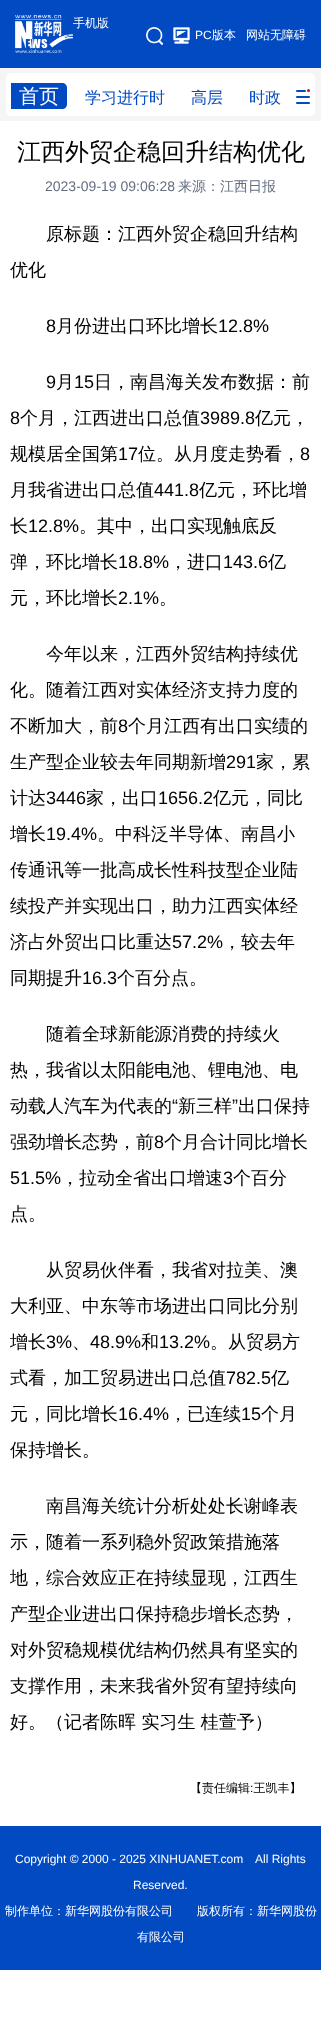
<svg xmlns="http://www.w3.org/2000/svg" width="321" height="2037">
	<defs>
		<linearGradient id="g1" gradientUnits="userSpaceOnUse" x1="278" y1="97" x2="288" y2="97"><stop offset="0" stop-color="#FFFFFF" stop-opacity="0" /><stop offset="1" stop-color="#FFFFFF" /></linearGradient>
	</defs>
	<rect width="100%" height="100%" fill="#FFFFFF" />
	<rect x="0" y="0" width="321" height="68" fill="#024AC2" />
	<image x="15" y="15" width="58" height="38" href="assets/img1.png" />
	<text x="73" y="27" font-family="WenQuanYi Zen Hei" font-size="12" font-weight="500" fill="#FFFFFF">手机版</text>
	<image x="146" y="27" width="17" height="18" href="assets/img2.png" />
	<image x="173" y="27" width="17" height="17" href="assets/img3.png" />
	<text x="195" y="39" font-family="Liberation Sans" font-size="12" fill="#FFFFFF">PC</text>
	<g font-family="WenQuanYi Zen Hei" font-size="12" font-weight="500" fill="#FFFFFF">
		<text x="212" y="39">版本</text>
		<text x="246" y="39">网站无障碍</text>
	</g>
	<rect x="0" y="68" width="321" height="53" fill="#F5F5F5" />
	<rect x="6" y="73" width="309" height="43" rx="5" fill="#FFFFFF" />
	<path d="M11 83H62C65 83 67 85 67 88V104C67 107 65 109 62 109H11Z" fill="#024AC2" />
	<text x="19" y="103" font-family="WenQuanYi Zen Hei" font-size="20" font-weight="500" fill="#FFFFFF">首页</text>
	<g font-family="WenQuanYi Zen Hei" font-size="16" font-weight="500" fill="#024AC2">
		<text x="85" y="103">学习进行时</text>
		<text x="191" y="103">高层</text>
		<text x="249" y="103">时政</text>
	</g>
	<rect x="278" y="93" width="3" height="12" fill="url(#g1)" />
	<rect x="296" y="90" width="10" height="2" rx="1" fill="#024AC2" />
	<circle cx="308.5" cy="90.5" r="1.5" fill="#E50020" />
	<rect x="296" y="96" width="14" height="2" rx="1" fill="#024AC2" />
	<rect x="296" y="102" width="14" height="2" rx="1" fill="#024AC2" />
	<text x="17" y="160" font-family="WenQuanYi Zen Hei" font-size="24" font-weight="500" fill="#000000">江西外贸企稳回升结构优化</text>
	<text x="45" y="191" font-family="Liberation Sans" font-size="14" fill="#646D81">2023-09-19 09:06:28</text>
	<text x="178" y="191" font-family="WenQuanYi Zen Hei" font-size="14" font-weight="500" fill="#646D81">来源：江西日报</text>
	<g font-family="WenQuanYi Zen Hei" font-size="18" font-weight="500" fill="#000000">
		<text x="46" y="240">原标题：江西外贸企稳回升结构</text>
		<text x="10" y="276">优化</text>
	</g>
	<text x="46" y="332" font-family="Liberation Sans" font-size="18" fill="#000000">8</text>
	<text x="56" y="332" font-family="WenQuanYi Zen Hei" font-size="18" font-weight="500" fill="#000000">月份进出口环比增长</text>
	<g font-family="Liberation Sans" font-size="18" fill="#000000">
		<text x="218" y="332">12.8%</text>
		<text x="46" y="388">9</text>
	</g>
	<text x="56" y="388" font-family="WenQuanYi Zen Hei" font-size="18" font-weight="500" fill="#000000">月</text>
	<text x="74" y="388" font-family="Liberation Sans" font-size="18" fill="#000000">15</text>
	<text x="94" y="388" font-family="WenQuanYi Zen Hei" font-size="18" font-weight="500" fill="#000000">日，南昌海关发布数据：前</text>
	<text x="10" y="424" font-family="Liberation Sans" font-size="18" fill="#000000">8</text>
	<text x="20" y="424" font-family="WenQuanYi Zen Hei" font-size="18" font-weight="500" fill="#000000">个月，江西进出口总值</text>
	<text x="200" y="424" font-family="Liberation Sans" font-size="18" fill="#000000">3989.8</text>
	<g font-family="WenQuanYi Zen Hei" font-size="18" font-weight="500" fill="#000000">
		<text x="255" y="424">亿元，</text>
		<text x="10" y="460">规模居全国第</text>
	</g>
	<text x="118" y="460" font-family="Liberation Sans" font-size="18" fill="#000000">17</text>
	<text x="138" y="460" font-family="WenQuanYi Zen Hei" font-size="18" font-weight="500" fill="#000000">位。从月度走势看，</text>
	<text x="300" y="460" font-family="Liberation Sans" font-size="18" fill="#000000">8</text>
	<text x="10" y="496" font-family="WenQuanYi Zen Hei" font-size="18" font-weight="500" fill="#000000">月我省进出口总值</text>
	<text x="154" y="496" font-family="Liberation Sans" font-size="18" fill="#000000">441.8</text>
	<g font-family="WenQuanYi Zen Hei" font-size="18" font-weight="500" fill="#000000">
		<text x="199" y="496">亿元，环比增</text>
		<text x="10" y="532">长</text>
	</g>
	<text x="28" y="532" font-family="Liberation Sans" font-size="18" fill="#000000">12.8%</text>
	<g font-family="WenQuanYi Zen Hei" font-size="18" font-weight="500" fill="#000000">
		<text x="79" y="532">。其中，出口实现触底反</text>
		<text x="10" y="568">弹，环比增长</text>
	</g>
	<text x="118" y="568" font-family="Liberation Sans" font-size="18" fill="#000000">18.8%</text>
	<text x="169" y="568" font-family="WenQuanYi Zen Hei" font-size="18" font-weight="500" fill="#000000">，进口</text>
	<text x="223" y="568" font-family="Liberation Sans" font-size="18" fill="#000000">143.6</text>
	<g font-family="WenQuanYi Zen Hei" font-size="18" font-weight="500" fill="#000000">
		<text x="268" y="568">亿</text>
		<text x="10" y="604">元，环比增长</text>
	</g>
	<text x="118" y="604" font-family="Liberation Sans" font-size="18" fill="#000000">2.1%</text>
	<g font-family="WenQuanYi Zen Hei" font-size="18" font-weight="500" fill="#000000">
		<text x="159" y="604">。</text>
		<text x="46" y="660">今年以来，江西外贸结构持续优</text>
		<text x="10" y="696">化。随着江西对实体经济支持力度的</text>
		<text x="10" y="732">不断加大，前</text>
	</g>
	<text x="118" y="732" font-family="Liberation Sans" font-size="18" fill="#000000">8</text>
	<g font-family="WenQuanYi Zen Hei" font-size="18" font-weight="500" fill="#000000">
		<text x="128" y="732">个月江西有出口实绩的</text>
		<text x="10" y="768">生产型企业较去年同期新增</text>
	</g>
	<text x="226" y="768" font-family="Liberation Sans" font-size="18" fill="#000000">291</text>
	<g font-family="WenQuanYi Zen Hei" font-size="18" font-weight="500" fill="#000000">
		<text x="256" y="768">家，累</text>
		<text x="10" y="804">计达</text>
	</g>
	<text x="46" y="804" font-family="Liberation Sans" font-size="18" fill="#000000">3446</text>
	<text x="86" y="804" font-family="WenQuanYi Zen Hei" font-size="18" font-weight="500" fill="#000000">家，出口</text>
	<text x="158" y="804" font-family="Liberation Sans" font-size="18" fill="#000000">1656.2</text>
	<g font-family="WenQuanYi Zen Hei" font-size="18" font-weight="500" fill="#000000">
		<text x="213" y="804">亿元，同比</text>
		<text x="10" y="840">增长</text>
	</g>
	<text x="46" y="840" font-family="Liberation Sans" font-size="18" fill="#000000">19.4%</text>
	<g font-family="WenQuanYi Zen Hei" font-size="18" font-weight="500" fill="#000000">
		<text x="97" y="840">。中科泛半导体、南昌小</text>
		<text x="10" y="876">传通讯等一批高成长性科技型企业陆</text>
		<text x="10" y="912">续投产并实现出口，助力江西实体经</text>
		<text x="10" y="948">济占外贸出口比重达</text>
	</g>
	<text x="172" y="948" font-family="Liberation Sans" font-size="18" fill="#000000">57.2%</text>
	<g font-family="WenQuanYi Zen Hei" font-size="18" font-weight="500" fill="#000000">
		<text x="223" y="948">，较去年</text>
		<text x="10" y="984">同期提升</text>
	</g>
	<text x="82" y="984" font-family="Liberation Sans" font-size="18" fill="#000000">16.3</text>
	<g font-family="WenQuanYi Zen Hei" font-size="18" font-weight="500" fill="#000000">
		<text x="117" y="984">个百分点。</text>
		<text x="46" y="1040">随着全球新能源消费的持续火</text>
		<text x="10" y="1076">热，我省以太阳能电池、锂电池、电</text>
		<text x="10" y="1112">动载人汽车为代表的</text>
	</g>
	<text x="172" y="1112" font-family="Liberation Sans" font-size="18" fill="#000000">“</text>
	<text x="178" y="1112" font-family="WenQuanYi Zen Hei" font-size="18" font-weight="500" fill="#000000">新三样</text>
	<text x="232" y="1112" font-family="Liberation Sans" font-size="18" fill="#000000">”</text>
	<g font-family="WenQuanYi Zen Hei" font-size="18" font-weight="500" fill="#000000">
		<text x="238" y="1112">出口保持</text>
		<text x="10" y="1148">强劲增长态势，前</text>
	</g>
	<text x="154" y="1148" font-family="Liberation Sans" font-size="18" fill="#000000">8</text>
	<text x="164" y="1148" font-family="WenQuanYi Zen Hei" font-size="18" font-weight="500" fill="#000000">个月合计同比增长</text>
	<text x="10" y="1184" font-family="Liberation Sans" font-size="18" fill="#000000">51.5%</text>
	<text x="61" y="1184" font-family="WenQuanYi Zen Hei" font-size="18" font-weight="500" fill="#000000">，拉动全省出口增速</text>
	<text x="223" y="1184" font-family="Liberation Sans" font-size="18" fill="#000000">3</text>
	<g font-family="WenQuanYi Zen Hei" font-size="18" font-weight="500" fill="#000000">
		<text x="233" y="1184">个百分</text>
		<text x="10" y="1220">点。</text>
		<text x="46" y="1276">从贸易伙伴看，我省对拉美、澳</text>
		<text x="10" y="1312">大利亚、中东等市场进出口同比分别</text>
		<text x="10" y="1348">增长</text>
	</g>
	<text x="46" y="1348" font-family="Liberation Sans" font-size="18" fill="#000000">3%</text>
	<text x="72" y="1348" font-family="WenQuanYi Zen Hei" font-size="18" font-weight="500" fill="#000000">、</text>
	<text x="90" y="1348" font-family="Liberation Sans" font-size="18" fill="#000000">48.9%</text>
	<text x="141" y="1348" font-family="WenQuanYi Zen Hei" font-size="18" font-weight="500" fill="#000000">和</text>
	<text x="159" y="1348" font-family="Liberation Sans" font-size="18" fill="#000000">13.2%</text>
	<g font-family="WenQuanYi Zen Hei" font-size="18" font-weight="500" fill="#000000">
		<text x="210" y="1348">。从贸易方</text>
		<text x="10" y="1384">式看，加工贸易进出口总值</text>
	</g>
	<text x="226" y="1384" font-family="Liberation Sans" font-size="18" fill="#000000">782.5</text>
	<g font-family="WenQuanYi Zen Hei" font-size="18" font-weight="500" fill="#000000">
		<text x="271" y="1384">亿</text>
		<text x="10" y="1420">元，同比增长</text>
	</g>
	<text x="118" y="1420" font-family="Liberation Sans" font-size="18" fill="#000000">16.4%</text>
	<text x="169" y="1420" font-family="WenQuanYi Zen Hei" font-size="18" font-weight="500" fill="#000000">，已连续</text>
	<text x="241" y="1420" font-family="Liberation Sans" font-size="18" fill="#000000">15</text>
	<g font-family="WenQuanYi Zen Hei" font-size="18" font-weight="500" fill="#000000">
		<text x="261" y="1420">个月</text>
		<text x="10" y="1456">保持增长。</text>
		<text x="46" y="1512">南昌海关统计分析处处长谢峰表</text>
		<text x="10" y="1548">示，随着一系列稳外贸政策措施落</text>
		<text x="10" y="1584">地，综合效应正在持续显现，江西生</text>
		<text x="10" y="1620">产型企业进出口保持稳步增长态势，</text>
		<text x="10" y="1656">对外贸稳规模优结构仍然具有坚实的</text>
		<text x="10" y="1692">支撑作用，未来我省外贸有望持续向</text>
		<text x="10" y="1728">好。（记者陈晖 实习生 桂萱予）</text>
	</g>
	<text x="190" y="1792" font-family="WenQuanYi Zen Hei" font-size="12" font-weight="500" fill="#000000">【责任编辑 王凯丰】</text>
	<text x="250" y="1792" font-family="Liberation Sans" font-size="12" fill="#000000">:</text>
	<rect x="0" y="1826" width="321" height="144" fill="#024AC2" />
	<g font-family="Liberation Sans" font-size="12" fill="#FFFFFF">
		<text x="15" y="1863">Copyright © 2000 - 2025 XINHUANET.com</text>
		<text x="255" y="1863">All Rights</text>
		<text x="133" y="1889">Reserved.</text>
	</g>
	<g font-family="WenQuanYi Zen Hei" font-size="12" font-weight="500" fill="#FFFFFF">
		<text x="5" y="1915">制作单位：新华网股份有限公司　　版权所有：新华网股份</text>
		<text x="137" y="1941">有限公司</text>
	</g>
</svg>
